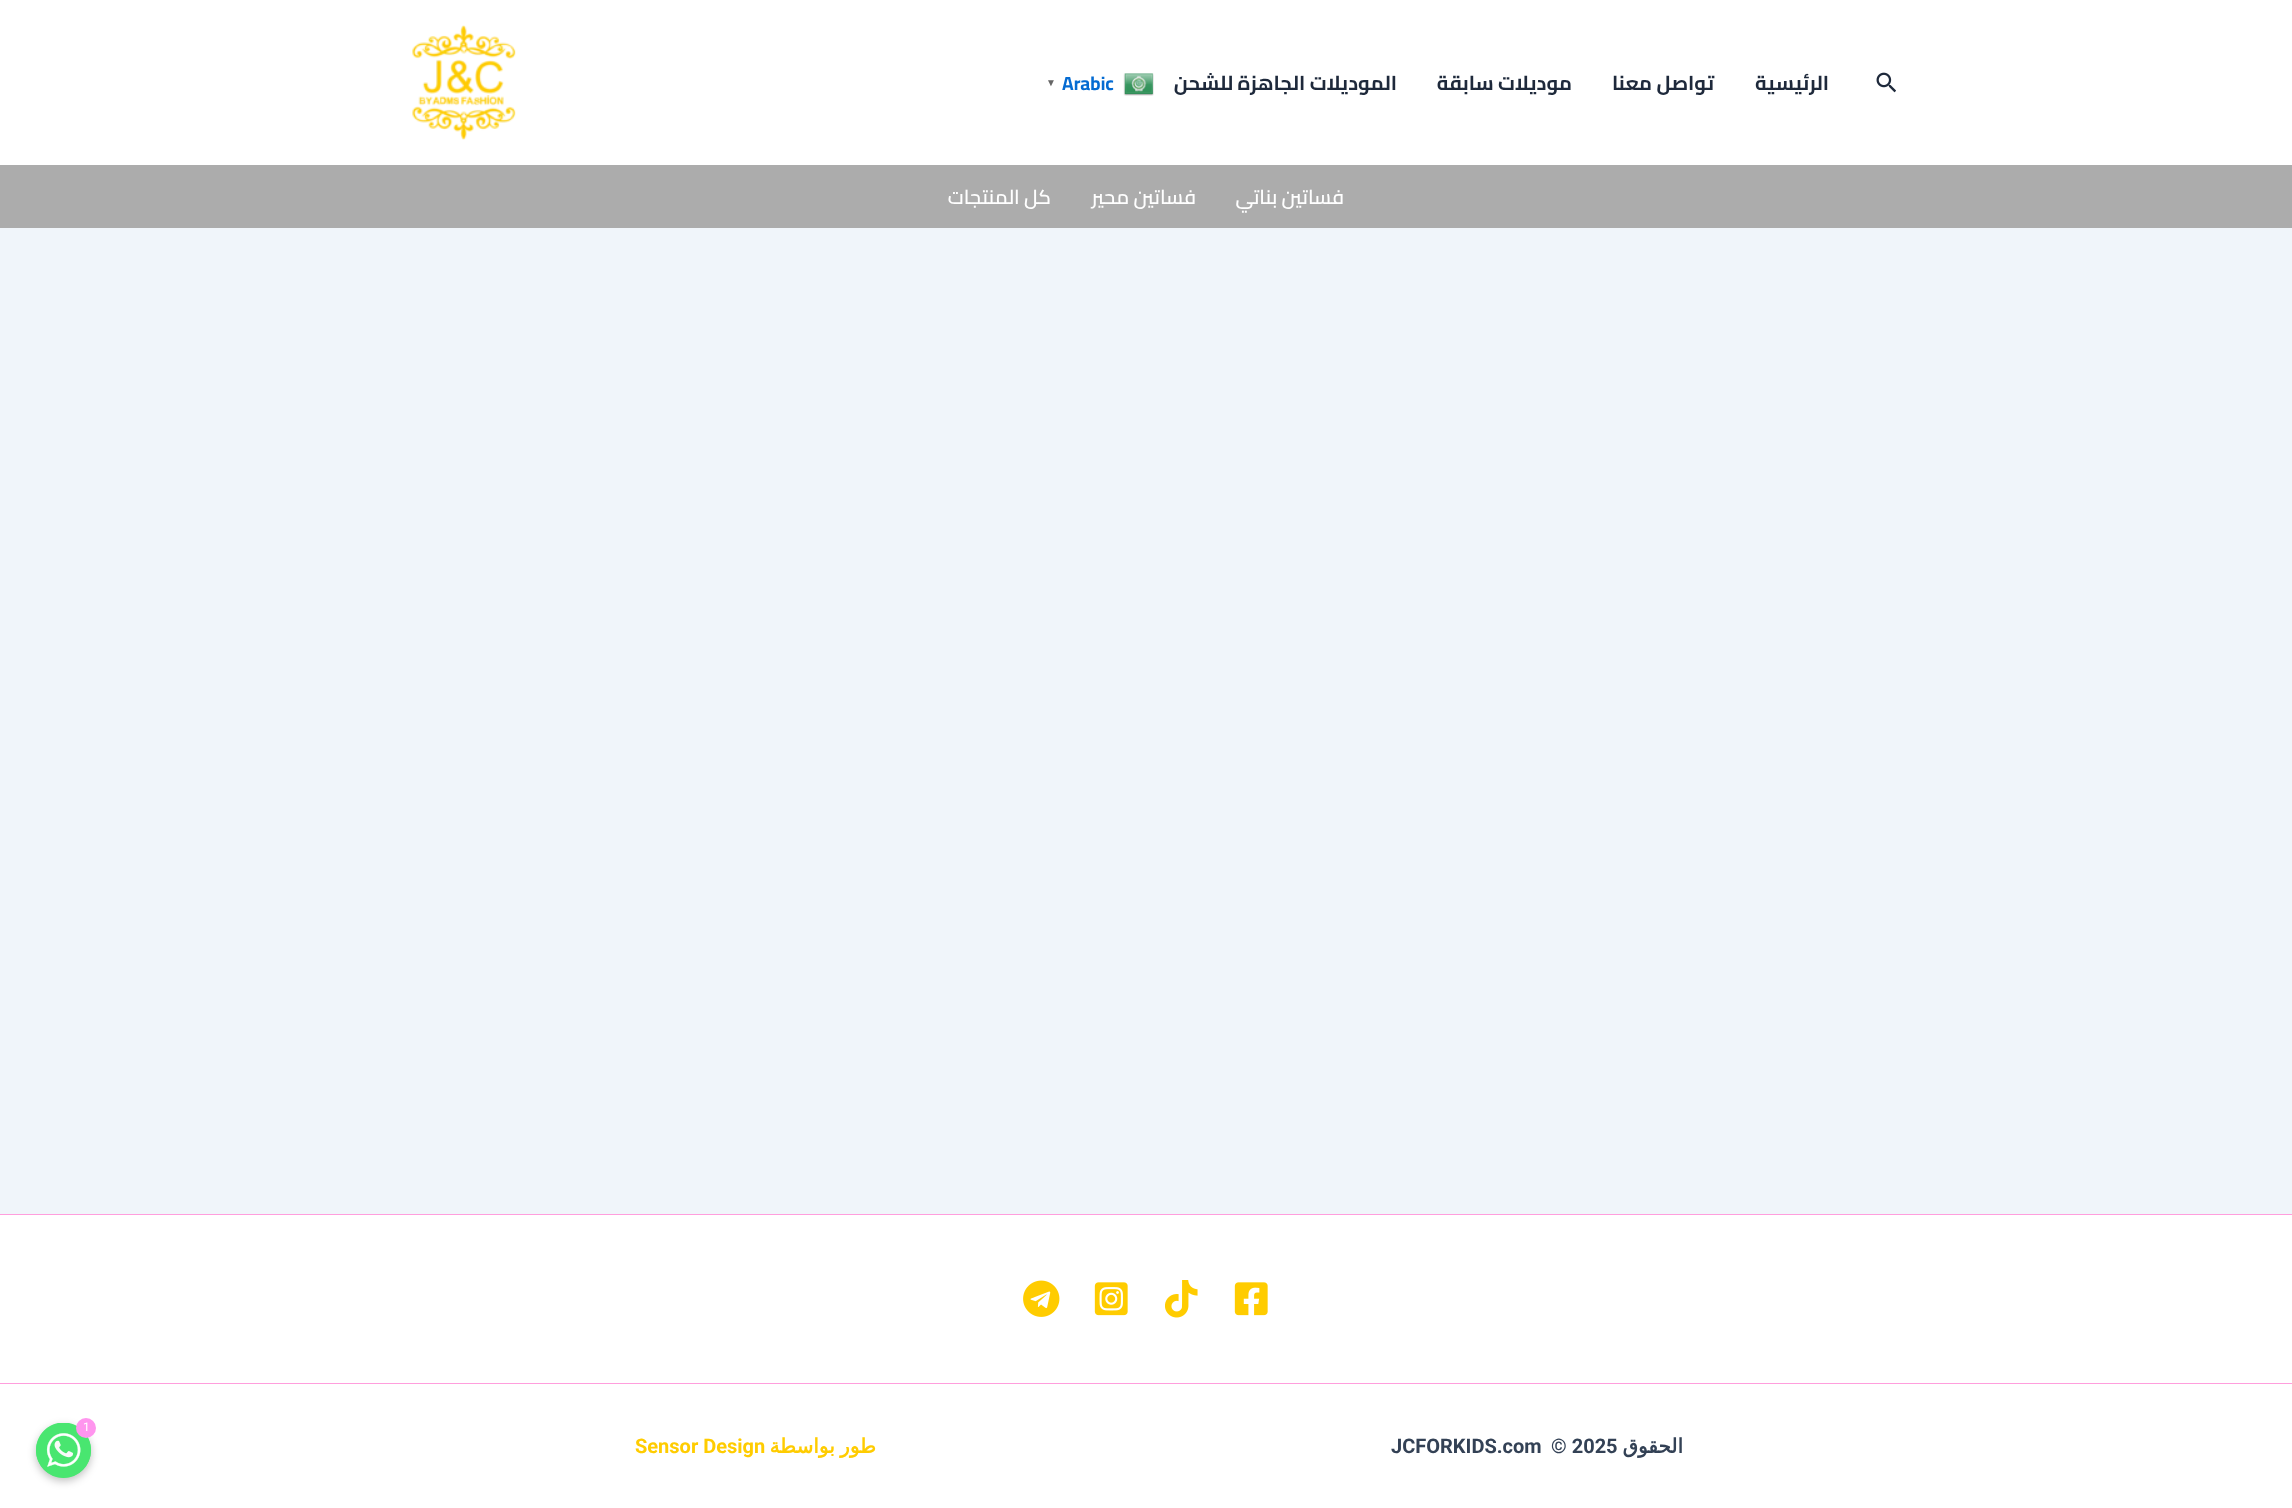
<svg xmlns="http://www.w3.org/2000/svg" width="2292" height="1508">
	<rect width="100%" height="100%" fill="#F0F5FA" />
	<rect x="0" y="0" width="2292" height="165" fill="#FFFFFF" />
	<image x="1876" y="72" width="20" height="21" href="assets/img1.png" />
	<g font-family="Cairo" font-size="20" font-weight="700" direction="rtl" fill="#1E293B">
		<text x="1829" y="90">الرئيسية</text>
		<text x="1714" y="90">تواصل معنا</text>
		<text x="1572" y="90">موديلات سابقة</text>
		<text x="1397" y="90">الموديلات الجاهزة للشحن</text>
	</g>
	<image x="1123" y="73" width="31" height="23" href="assets/img2.png" />
	<text x="1062" y="90" font-family="Cairo" font-size="19" font-weight="700" fill="#046BD2">Arabic</text>
	<text x="1046" y="86" font-family="Liberation Sans" font-size="10" font-weight="700" fill="#666666">▼</text>
	<image x="412" y="25" width="104" height="115" href="assets/img3.png" />
	<rect x="0" y="165" width="2292" height="63" fill="#ACACAC" />
	<g font-family="Cairo" font-size="20" font-weight="600" direction="rtl" fill="#FFFFFF">
		<text x="1344" y="204">فساتين بناتي</text>
		<text x="1196" y="204">فساتين محير</text>
		<text x="1051" y="204">كل المنتجات</text>
	</g>
	<rect x="0" y="1215" width="2292" height="168" fill="#FFFFFF" />
	<rect x="0" y="1214" width="2292" height="1" fill="#FF9EDD" />
	<image x="1234" y="1282" width="34" height="34" href="assets/img4.png" />
	<image x="1165" y="1280" width="33" height="38" href="assets/img5.png" />
	<image x="1094" y="1282" width="34" height="34" href="assets/img6.png" />
	<image x="1023" y="1280" width="37" height="37" href="assets/img7.png" />
	<rect x="0" y="1384" width="2292" height="124" fill="#FFFFFF" />
	<rect x="0" y="1383" width="2292" height="1" fill="#FF9EDD" />
	<text x="1683" y="1453" font-family="DejaVu Sans" font-size="20" font-weight="700" direction="rtl" fill="#334155">الحقوق</text>
	<g font-family="Roboto" font-size="20" font-weight="700" fill="#334155">
		<text x="1551" y="1453">© 2025</text>
		<text x="1391" y="1453">JCFORKIDS.com</text>
	</g>
	<text x="876" y="1453" word-spacing="-1" font-family="DejaVu Sans" font-size="20" font-weight="700" direction="rtl" fill="#FFCC00">طور بواسطة</text>
	<text x="635" y="1453" font-family="Roboto" font-size="20" font-weight="700" fill="#FFCC00">Sensor Design</text>
	<rect x="36" y="1426" width="55" height="55" rx="27.5" fill="#000000" fill-opacity="0.25" filter="blur(4px)" />
	<circle cx="63.5" cy="1450.5" r="27.5" fill="#49E670" />
	<image x="36" y="1423" width="55" height="55" href="assets/img8.png" />
	<circle cx="86" cy="1428" r="10" fill="#FF95EE" />
	<text x="83" y="1431" font-family="Roboto" font-size="12" fill="#FFFFFF">1</text>
</svg>
